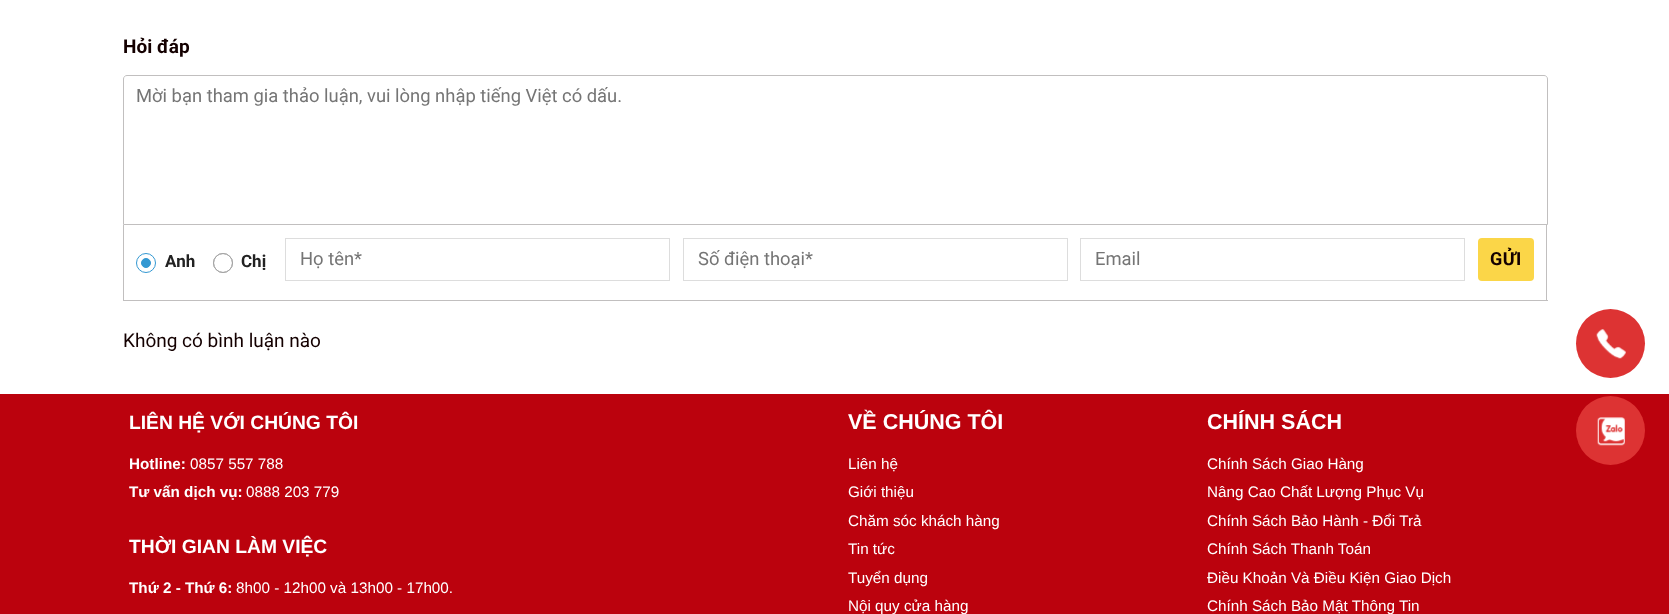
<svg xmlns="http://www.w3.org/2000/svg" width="1669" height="614">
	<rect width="100%" height="100%" fill="#FFFFFF" />
	<text x="123" y="53" font-family="Roboto" font-size="19" font-weight="700" fill="#140000">Hỏi đáp</text>
	<path d="M127 75.5H1544C1546 75.5 1547.5 77 1547.5 79V224.5H123.5V79C123.5 77 125 75.5 127 75.5Z" fill="none" stroke="#C1BFBF" />
	<text x="136" y="102" font-family="Roboto" font-size="18.4" fill="#757575">Mời bạn tham gia thảo luận, vui lòng nhập tiếng Việt có dấu.</text>
	<rect x="1546" y="225" width="1" height="76" fill="#C1BFBF" />
	<rect x="123" y="300" width="1425" height="1" fill="#C1BFBF" />
	<rect x="123" y="225" width="1" height="76" fill="#C1BFBF" />
	<circle cx="146" cy="263" r="9.5" fill="none" stroke="#3398D2" />
	<text x="165" y="267" font-family="Roboto" font-size="17" font-weight="700" fill="#222222">Anh</text>
	<circle cx="146" cy="263" r="4.5" fill="#3398D2" stroke="#3398D2" />
	<circle cx="223" cy="263" r="9.5" fill="none" stroke="#A6A6A6" />
	<circle cx="223" cy="263" r="9.5" fill="none" stroke="#A6A6A6" />
	<text x="241" y="267" font-family="Roboto" font-size="17" font-weight="700" fill="#222222">Chị</text>
	<rect x="285.5" y="238.5" width="384" height="42" fill="none" stroke="#DDDDDD" />
	<text x="300" y="265" font-family="Roboto" font-size="18.4" fill="#757575">Họ tên*</text>
	<rect x="683.5" y="238.5" width="384" height="42" fill="none" stroke="#DDDDDD" />
	<text x="698" y="265" font-family="Roboto" font-size="18.4" fill="#757575">Số điện thoại*</text>
	<rect x="1080.5" y="238.5" width="384" height="42" fill="none" stroke="#DDDDDD" />
	<text x="1095" y="265" font-family="Roboto" font-size="18.4" fill="#757575">Email</text>
	<rect x="1478" y="238" width="56" height="43" rx="4" fill="#FBD648" />
	<text x="1490" y="265" font-family="Roboto" font-size="18" font-weight="700" letter-spacing="0.5" fill="#140000">GỬI</text>
	<text x="123" y="347" font-family="Roboto" font-size="19" fill="#140000">Không có bình luận nào</text>
	<rect x="0" y="394" width="1669" height="220" fill="#BB020D" />
	<text x="129" y="429" font-family="Liberation Sans" font-size="19.25" font-weight="700" fill="#FFFFFF">LIÊN HỆ VỚI CHÚNG TÔI</text>
	<text x="129" y="469" font-family="Liberation Sans" font-size="15.25" font-weight="700" fill="#FFFFFF">Hotline:</text>
	<text x="190" y="469" font-family="Liberation Sans" font-size="15.25" fill="#FFFFFF">0857 557 788</text>
	<text x="129" y="497" font-family="Liberation Sans" font-size="15.25" font-weight="700" fill="#FFFFFF">Tư vấn dịch vụ:</text>
	<text x="246" y="497" font-family="Liberation Sans" font-size="15.25" fill="#FFFFFF">0888 203 779</text>
	<text x="129" y="553" font-family="Liberation Sans" font-size="19.25" font-weight="700" fill="#FFFFFF">THỜI GIAN LÀM VIỆC</text>
	<text x="129" y="593" font-family="Liberation Sans" font-size="15.25" font-weight="700" fill="#FFFFFF">Thứ 2 - Thứ 6:</text>
	<text x="236" y="593" font-family="Liberation Sans" font-size="15.25" fill="#FFFFFF">8h00 - 12h00 và 13h00 - 17h00.</text>
	<text x="848" y="429" font-family="Liberation Sans" font-size="21.5" font-weight="700" fill="#FFFFFF">VỀ CHÚNG TÔI</text>
	<g font-family="Liberation Sans" font-size="15.25" fill="#FFFFFF">
		<text x="848" y="469">Liên hệ</text>
		<text x="848" y="497">Giới thiệu</text>
		<text x="848" y="526">Chăm sóc khách hàng</text>
		<text x="848" y="554">Tin tức</text>
		<text x="848" y="583">Tuyển dụng</text>
		<text x="848" y="611">Nội quy cửa hàng</text>
	</g>
	<text x="1207" y="429" font-family="Liberation Sans" font-size="21.5" font-weight="700" fill="#FFFFFF">CHÍNH SÁCH</text>
	<g font-family="Liberation Sans" font-size="15.25" fill="#FFFFFF">
		<text x="1207" y="469">Chính Sách Giao Hàng</text>
		<text x="1207" y="497">Nâng Cao Chất Lượng Phục Vụ</text>
		<text x="1207" y="526">Chính Sách Bảo Hành - Đổi Trả</text>
		<text x="1207" y="554">Chính Sách Thanh Toán</text>
		<text x="1207" y="583">Điều Khoản Và Điều Kiện Giao Dịch</text>
		<text x="1207" y="611">Chính Sách Bảo Mật Thông Tin</text>
	</g>
	<circle cx="1610.5" cy="343.5" r="34.5" fill="#DD3333" />
	<image x="1596" y="329" width="30" height="30" href="assets/img1.png" />
	<circle cx="1610.5" cy="430.5" r="34.5" fill="#DD3333" />
	<image x="1597" y="417" width="28" height="29" href="assets/img2.png" />
</svg>
